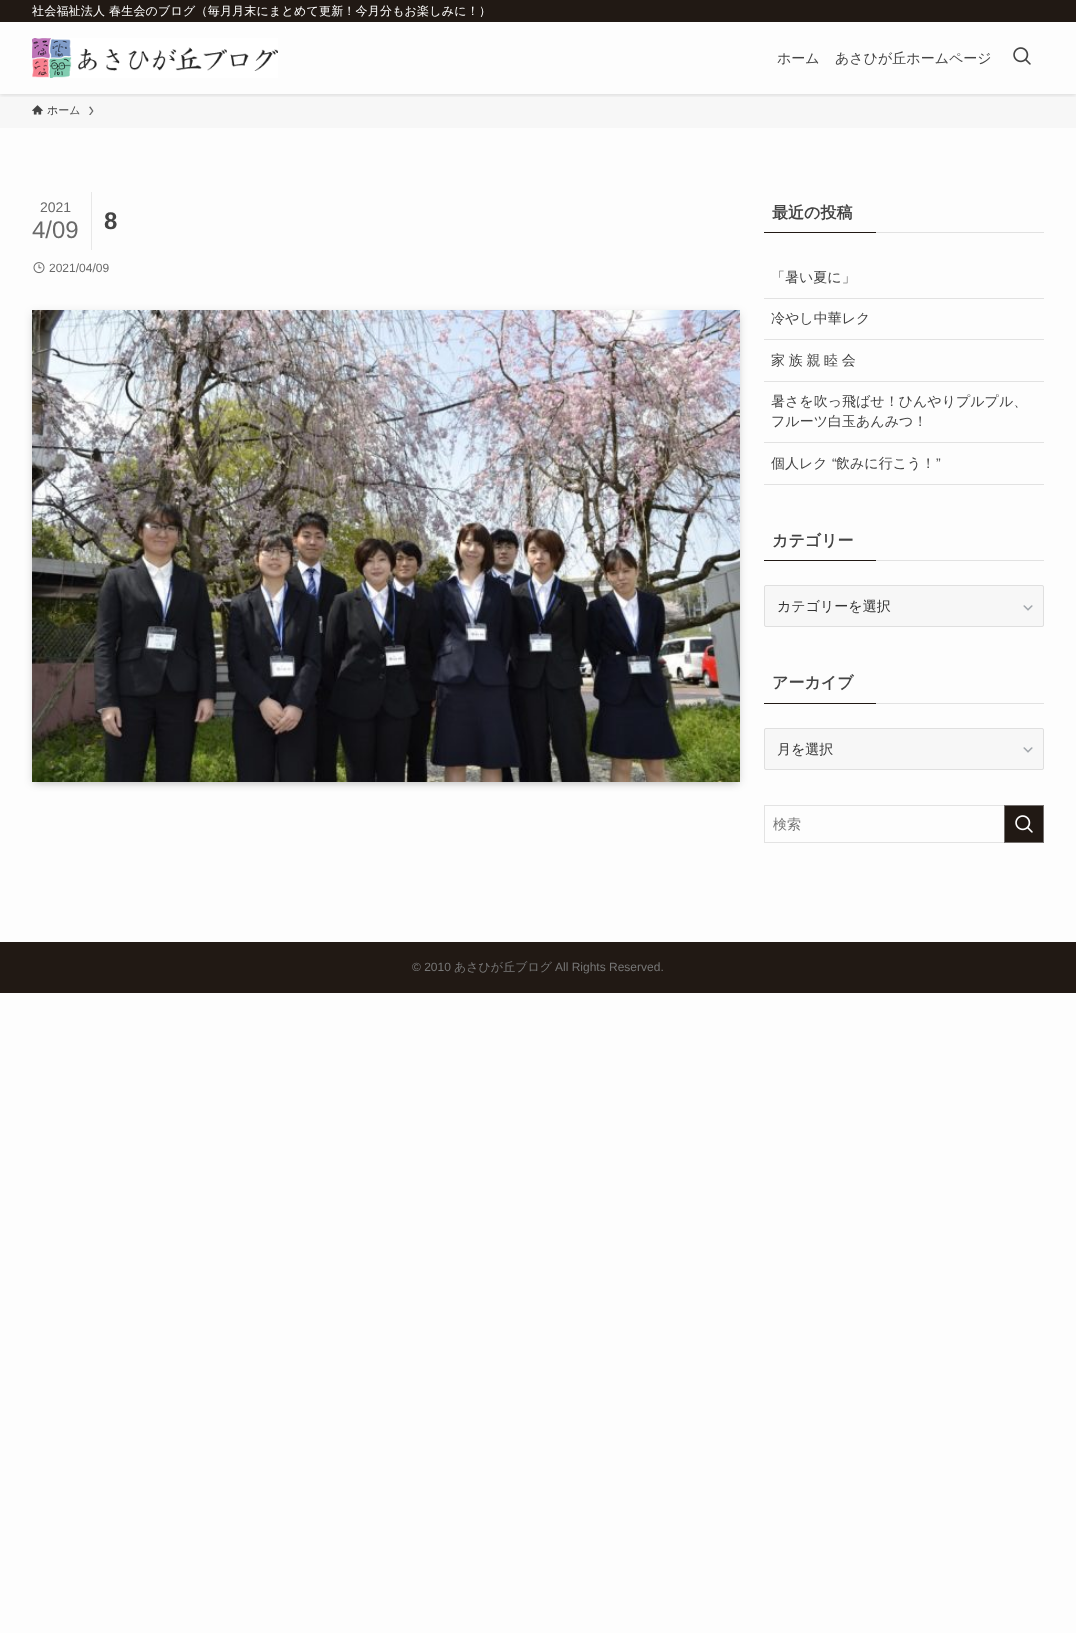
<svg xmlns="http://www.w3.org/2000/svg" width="1076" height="1633">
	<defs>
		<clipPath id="clip1"><rect x="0" y="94" width="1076" height="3" /></clipPath>
	</defs>
	<rect width="100%" height="100%" fill="#FDFDFD" />
	<rect x="0" y="94" width="1076" height="34" fill="#F7F7F7" />
	<g clip-path="url(#clip1)">
		<rect x="0" y="1" width="1076" height="94" fill="#000000" fill-opacity="0.12" filter="blur(2px)" />
	</g>
	<rect x="0" y="0" width="1076" height="22" fill="#211914" />
	<text x="32" y="15" font-family="WenQuanYi Zen Hei" font-size="12" font-weight="500" letter-spacing="0.2" fill="#FFFFFF">社会福祉法人 春生会のブログ（毎月月末にまとめて更新！今月分もお楽しみに！）</text>
	<image x="32" y="38" width="246" height="40" href="assets/img1.png" />
	<g font-family="WenQuanYi Zen Hei" font-size="14" font-weight="500" fill="#444444">
		<text x="777" y="63">ホーム</text>
		<text x="835" y="63">あさひが丘ホームページ</text>
	</g>
	<image x="1013" y="47" width="18" height="18" href="assets/img2.png" />
	<image x="32" y="105" width="11" height="10" href="assets/img3.png" />
	<text x="47" y="114" font-family="WenQuanYi Zen Hei" font-size="11" font-weight="500" fill="#444444">ホーム</text>
	<path d="M90.5 106.5L89 107L92 111L89 115H90.5L93.5 111Z" fill="#686868" />
	<rect x="91" y="192" width="1" height="58" fill="#E8E8E8" />
	<text x="40" y="212" font-family="Liberation Sans" font-size="14" fill="#696969">2021</text>
	<text x="32" y="238" font-family="Liberation Sans" font-size="24" fill="#696969">4/09</text>
	<text x="104" y="229" font-family="Liberation Sans" font-size="24" font-weight="700" fill="#444444">8</text>
	<image x="33" y="262" width="12" height="12" href="assets/img4.png" />
	<text x="49" y="272" font-family="Liberation Sans" font-size="12" fill="#696969">2021/04/09</text>
	<rect x="36" y="318" width="700" height="464" fill="#000000" fill-opacity="0.2" filter="blur(4px)" />
	<rect x="32" y="312" width="708" height="472" fill="#000000" fill-opacity="0.1" filter="blur(4px)" />
	<image x="32" y="310" width="708" height="472" href="assets/img5.png" />
	<text x="772" y="218" font-family="WenQuanYi Zen Hei" font-size="16" font-weight="700" fill="#444444">最近の投稿</text>
	<rect x="764" y="232" width="112" height="1" fill="#211914" />
	<rect x="876" y="232" width="168" height="1" fill="#E2E2E2" />
	<rect x="764" y="298" width="280" height="1" fill="#E2E2E2" />
	<text x="771" y="282" font-family="WenQuanYi Zen Hei" font-size="14" font-weight="500" fill="#444444">「暑い夏に」</text>
	<rect x="764" y="339" width="280" height="1" fill="#E2E2E2" />
	<text x="771" y="323" font-family="WenQuanYi Zen Hei" font-size="14" font-weight="500" fill="#444444">冷やし中華レク</text>
	<rect x="764" y="381" width="280" height="1" fill="#E2E2E2" />
	<text x="771" y="365" word-spacing="-0.5" font-family="WenQuanYi Zen Hei" font-size="14" font-weight="500" fill="#444444">家 族 親 睦 会</text>
	<rect x="764" y="442" width="280" height="1" fill="#E2E2E2" />
	<g font-family="WenQuanYi Zen Hei" font-size="14" font-weight="500" fill="#444444">
		<text x="771" y="406">暑さを吹っ飛ばせ！ひんやりプルプル、</text>
		<text x="771" y="426">フルーツ白玉あんみつ！</text>
	</g>
	<rect x="764" y="484" width="280" height="1" fill="#E2E2E2" />
	<text x="771" y="468" font-family="WenQuanYi Zen Hei" font-size="14" font-weight="500" fill="#444444">個人レク</text>
	<text x="832" y="468" font-family="Liberation Sans" font-size="14" fill="#444444">“</text>
	<text x="836" y="468" font-family="WenQuanYi Zen Hei" font-size="14" font-weight="500" fill="#444444">飲みに行こう！</text>
	<text x="936" y="468" font-family="Liberation Sans" font-size="14" fill="#444444">”</text>
	<text x="772" y="546" font-family="WenQuanYi Zen Hei" font-size="16" font-weight="700" fill="#444444">カテゴリー</text>
	<rect x="764" y="560" width="112" height="1" fill="#211914" />
	<rect x="876" y="560" width="168" height="1" fill="#E2E2E2" />
	<rect x="764" y="585" width="280" height="42" rx="2" fill="#F7F7F7" />
	<image x="1023" y="605" width="10" height="6" href="assets/img6.png" />
	<rect x="764.5" y="585.5" width="279" height="41" rx="1.5" fill="none" stroke="#DFDFDF" />
	<text x="777" y="611" font-family="WenQuanYi Zen Hei" font-size="14" font-weight="500" fill="#333333">カテゴリーを選択</text>
	<text x="772" y="688" font-family="WenQuanYi Zen Hei" font-size="16" font-weight="700" fill="#444444">アーカイブ</text>
	<rect x="764" y="703" width="112" height="1" fill="#211914" />
	<rect x="876" y="703" width="168" height="1" fill="#E2E2E2" />
	<rect x="764" y="728" width="280" height="42" rx="2" fill="#F7F7F7" />
	<image x="1023" y="747" width="10" height="6" href="assets/img6.png" />
	<rect x="764.5" y="728.5" width="279" height="41" rx="1.5" fill="none" stroke="#DFDFDF" />
	<text x="777" y="754" font-family="WenQuanYi Zen Hei" font-size="14" font-weight="500" fill="#333333">月を選択</text>
	<rect x="764.5" y="805.5" width="279" height="37" fill="none" stroke="#E3E3E3" />
	<text x="773" y="829" font-family="WenQuanYi Zen Hei" font-size="14" font-weight="500" fill="#777777">検索</text>
	<rect x="1004.5" y="805.5" width="39" height="37" fill="#211914" stroke="#74706E" />
	<image x="1015" y="815" width="18" height="18" href="assets/img7.png" />
	<rect x="0" y="942" width="1076" height="51" fill="#211914" />
	<text x="412" y="971" font-family="Liberation Sans" font-size="12" fill="#777777">© 2010</text>
	<text x="454" y="971" font-family="WenQuanYi Zen Hei" font-size="12" font-weight="500" fill="#777777">あさひが丘ブログ</text>
	<text x="555" y="971" font-family="Liberation Sans" font-size="12" fill="#777777">All Rights Reserved.</text>
</svg>
